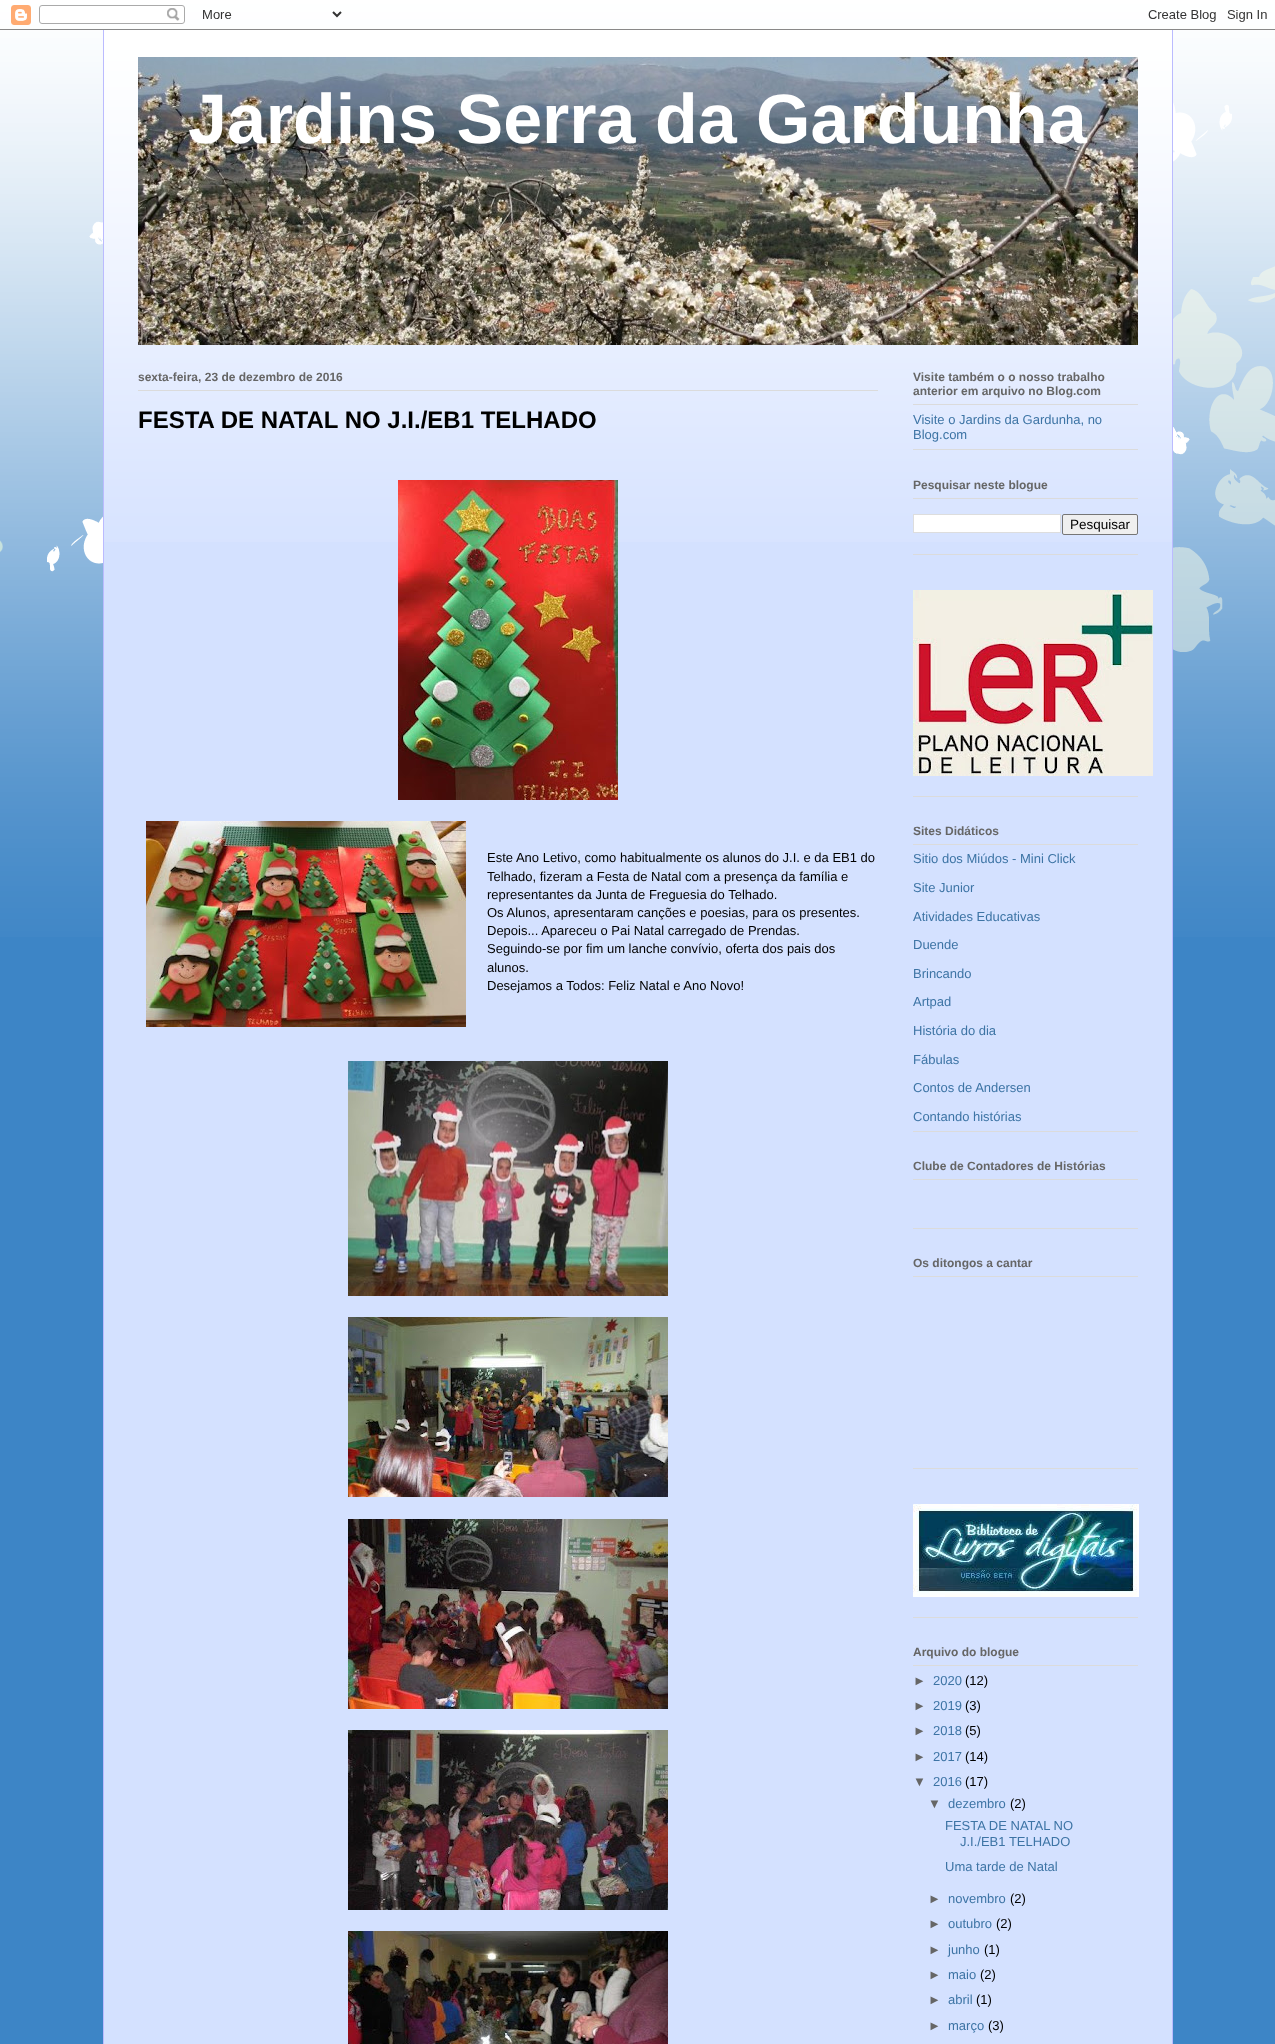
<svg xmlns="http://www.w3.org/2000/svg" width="1275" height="2044">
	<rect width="100%" height="100%" fill="#3D85C6" />
	<image x="0" y="0" width="1275" height="937" href="assets/img1.png" />
	<image x="0" y="5" width="1275" height="25" href="assets/img2.png" />
	<rect x="104" y="37" width="1068" height="2007" fill="#D4E1FF" />
	<image x="104" y="30" width="1068" height="512" href="assets/img3.png" />
	<rect x="1172" y="30" width="1" height="2014" fill="#BBBBFF" />
	<rect x="103" y="30" width="1" height="2014" fill="#BBBBFF" />
	<image x="138" y="57" width="1000" height="288" href="assets/img4.png" />
	<text x="188" y="143" font-family="Liberation Sans" font-size="70" font-weight="700" fill="#FFFFFF">Jardins Serra da Gardunha</text>
	<rect x="138" y="390" width="740" height="1" fill="#DBDBDB" />
	<text x="138" y="381" font-family="Liberation Sans" font-size="12" font-weight="700" fill="#666666">sexta-feira, 23 de dezembro de 2016</text>
	<text x="138" y="428" font-family="Liberation Sans" font-size="24" font-weight="700" fill="#000000">FESTA DE NATAL NO J.I./EB1 TELHADO</text>
	<image x="398" y="480" width="220" height="320" href="assets/img5.png" />
	<image x="146" y="821" width="320" height="206" href="assets/img6.png" />
	<g font-family="Liberation Sans" font-size="13" fill="#000000">
		<text x="487" y="862">Este Ano Letivo, como habitualmente os alunos do J.I. e da EB1 do</text>
		<text x="487" y="881">Telhado, fizeram a Festa de Natal com a presença da família e</text>
		<text x="487" y="899">representantes da Junta de Freguesia do Telhado.</text>
		<text x="487" y="917">Os Alunos, apresentaram canções e poesias, para os presentes.</text>
		<text x="487" y="935">Depois... Apareceu o Pai Natal carregado de Prendas.</text>
		<text x="487" y="953">Seguindo-se por fim um lanche convívio, oferta dos pais dos</text>
		<text x="487" y="972">alunos.</text>
		<text x="487" y="990">Desejamos a Todos: Feliz Natal e Ano Novo!</text>
	</g>
	<image x="348" y="1061" width="320" height="235" href="assets/img7.png" />
	<image x="348" y="1317" width="320" height="180" href="assets/img8.png" />
	<image x="348" y="1519" width="320" height="190" href="assets/img9.png" />
	<image x="348" y="1730" width="320" height="180" href="assets/img10.png" />
	<image x="348" y="1931" width="320" height="113" href="assets/img11.png" />
	<rect x="913" y="449" width="225" height="1" fill="#DBDBDB" />
	<rect x="913" y="404" width="225" height="1" fill="#DBDBDB" />
	<g font-family="Liberation Sans" font-size="12" font-weight="700" fill="#666666">
		<text x="913" y="381">Visite também o o nosso trabalho</text>
		<text x="913" y="395">anterior em arquivo no Blog.com</text>
	</g>
	<g font-family="Liberation Sans" font-size="13" fill="#3D74A5">
		<text x="913" y="424">Visite o Jardins da Gardunha, no</text>
		<text x="913" y="439">Blog.com</text>
	</g>
	<rect x="913" y="554" width="225" height="1" fill="#DBDBDB" />
	<rect x="913" y="498" width="225" height="1" fill="#DBDBDB" />
	<text x="913" y="489" font-family="Liberation Sans" font-size="12" font-weight="700" fill="#666666">Pesquisar neste blogue</text>
	<rect x="913.5" y="514.5" width="147" height="18" fill="#FFFFFF" stroke="#DDDDDD" />
	<rect x="1062.5" y="514.5" width="75" height="20" rx="1.5" fill="#EFEFEF" stroke="#767676" />
	<text x="1070" y="529" font-family="Liberation Sans" font-size="13.5" fill="#000000">Pesquisar</text>
	<rect x="913" y="796" width="225" height="1" fill="#DBDBDB" />
	<image x="913" y="590" width="240" height="186" href="assets/img12.png" />
	<rect x="913" y="1131" width="225" height="1" fill="#DBDBDB" />
	<rect x="913" y="844" width="225" height="1" fill="#DBDBDB" />
	<text x="913" y="835" font-family="Liberation Sans" font-size="12" font-weight="700" fill="#666666">Sites Didáticos</text>
	<g font-family="Liberation Sans" font-size="13" fill="#3D74A5">
		<text x="913" y="863">Sitio dos Miúdos - Mini Click</text>
		<text x="913" y="892">Site Junior</text>
		<text x="913" y="921">Atividades Educativas</text>
		<text x="913" y="949">Duende</text>
		<text x="913" y="978">Brincando</text>
		<text x="913" y="1006">Artpad</text>
		<text x="913" y="1035">História do dia</text>
		<text x="913" y="1064">Fábulas</text>
		<text x="913" y="1092">Contos de Andersen</text>
		<text x="913" y="1121">Contando histórias</text>
	</g>
	<rect x="913" y="1228" width="225" height="1" fill="#DBDBDB" />
	<rect x="913" y="1179" width="225" height="1" fill="#DBDBDB" />
	<text x="913" y="1170" font-family="Liberation Sans" font-size="12" font-weight="700" fill="#666666">Clube de Contadores de Histórias</text>
	<rect x="913" y="1468" width="225" height="1" fill="#DBDBDB" />
	<rect x="913" y="1276" width="225" height="1" fill="#DBDBDB" />
	<text x="913" y="1267" font-family="Liberation Sans" font-size="12" font-weight="700" fill="#666666">Os ditongos a cantar</text>
	<rect x="913" y="1617" width="225" height="1" fill="#DBDBDB" />
	<image x="913" y="1504" width="226" height="93" href="assets/img13.png" />
	<rect x="913" y="1665" width="225" height="1" fill="#DBDBDB" />
	<text x="913" y="1656" font-family="Liberation Sans" font-size="12" font-weight="700" fill="#666666">Arquivo do blogue</text>
	<text x="913" y="1685" font-family="Liberation Sans" font-size="13" fill="#666666">►</text>
	<text x="933" y="1685" font-family="Liberation Sans" font-size="13" fill="#3D74A5">2020</text>
	<text x="965" y="1685" font-family="Liberation Sans" font-size="13" fill="#000000">(12)</text>
	<text x="913" y="1710" font-family="Liberation Sans" font-size="13" fill="#666666">►</text>
	<text x="933" y="1710" font-family="Liberation Sans" font-size="13" fill="#3D74A5">2019</text>
	<text x="965" y="1710" font-family="Liberation Sans" font-size="13" fill="#000000">(3)</text>
	<text x="913" y="1735" font-family="Liberation Sans" font-size="13" fill="#666666">►</text>
	<text x="933" y="1735" font-family="Liberation Sans" font-size="13" fill="#3D74A5">2018</text>
	<text x="965" y="1735" font-family="Liberation Sans" font-size="13" fill="#000000">(5)</text>
	<text x="913" y="1761" font-family="Liberation Sans" font-size="13" fill="#666666">►</text>
	<text x="933" y="1761" font-family="Liberation Sans" font-size="13" fill="#3D74A5">2017</text>
	<text x="965" y="1761" font-family="Liberation Sans" font-size="13" fill="#000000">(14)</text>
	<text x="913" y="1786" font-family="Liberation Sans" font-size="13" fill="#666666">▼</text>
	<text x="933" y="1786" font-family="Liberation Sans" font-size="13" fill="#3D74A5">2016</text>
	<text x="965" y="1786" font-family="Liberation Sans" font-size="13" fill="#000000">(17)</text>
	<text x="928" y="1808" font-family="Liberation Sans" font-size="13" fill="#666666">▼</text>
	<text x="948" y="1808" font-family="Liberation Sans" font-size="13" fill="#3D74A5">dezembro</text>
	<text x="1010" y="1808" font-family="Liberation Sans" font-size="13" fill="#000000">(2)</text>
	<g font-family="Liberation Sans" font-size="13" fill="#3D74A5">
		<text x="945" y="1830">FESTA DE NATAL NO</text>
		<text x="960" y="1846">J.I./EB1 TELHADO</text>
		<text x="945" y="1871">Uma tarde de Natal</text>
	</g>
	<text x="928" y="1903" font-family="Liberation Sans" font-size="13" fill="#666666">►</text>
	<text x="948" y="1903" font-family="Liberation Sans" font-size="13" fill="#3D74A5">novembro</text>
	<text x="1010" y="1903" font-family="Liberation Sans" font-size="13" fill="#000000">(2)</text>
	<text x="928" y="1928" font-family="Liberation Sans" font-size="13" fill="#666666">►</text>
	<text x="948" y="1928" font-family="Liberation Sans" font-size="13" fill="#3D74A5">outubro</text>
	<text x="996" y="1928" font-family="Liberation Sans" font-size="13" fill="#000000">(2)</text>
	<text x="928" y="1954" font-family="Liberation Sans" font-size="13" fill="#666666">►</text>
	<text x="948" y="1954" font-family="Liberation Sans" font-size="13" fill="#3D74A5">junho</text>
	<text x="984" y="1954" font-family="Liberation Sans" font-size="13" fill="#000000">(1)</text>
	<text x="928" y="1979" font-family="Liberation Sans" font-size="13" fill="#666666">►</text>
	<text x="948" y="1979" font-family="Liberation Sans" font-size="13" fill="#3D74A5">maio</text>
	<text x="980" y="1979" font-family="Liberation Sans" font-size="13" fill="#000000">(2)</text>
	<text x="928" y="2004" font-family="Liberation Sans" font-size="13" fill="#666666">►</text>
	<text x="948" y="2004" font-family="Liberation Sans" font-size="13" fill="#3D74A5">abril</text>
	<text x="976" y="2004" font-family="Liberation Sans" font-size="13" fill="#000000">(1)</text>
	<text x="928" y="2030" font-family="Liberation Sans" font-size="13" fill="#666666">►</text>
	<text x="948" y="2030" font-family="Liberation Sans" font-size="13" fill="#3D74A5">março</text>
	<text x="988" y="2030" font-family="Liberation Sans" font-size="13" fill="#000000">(3)</text>
</svg>
